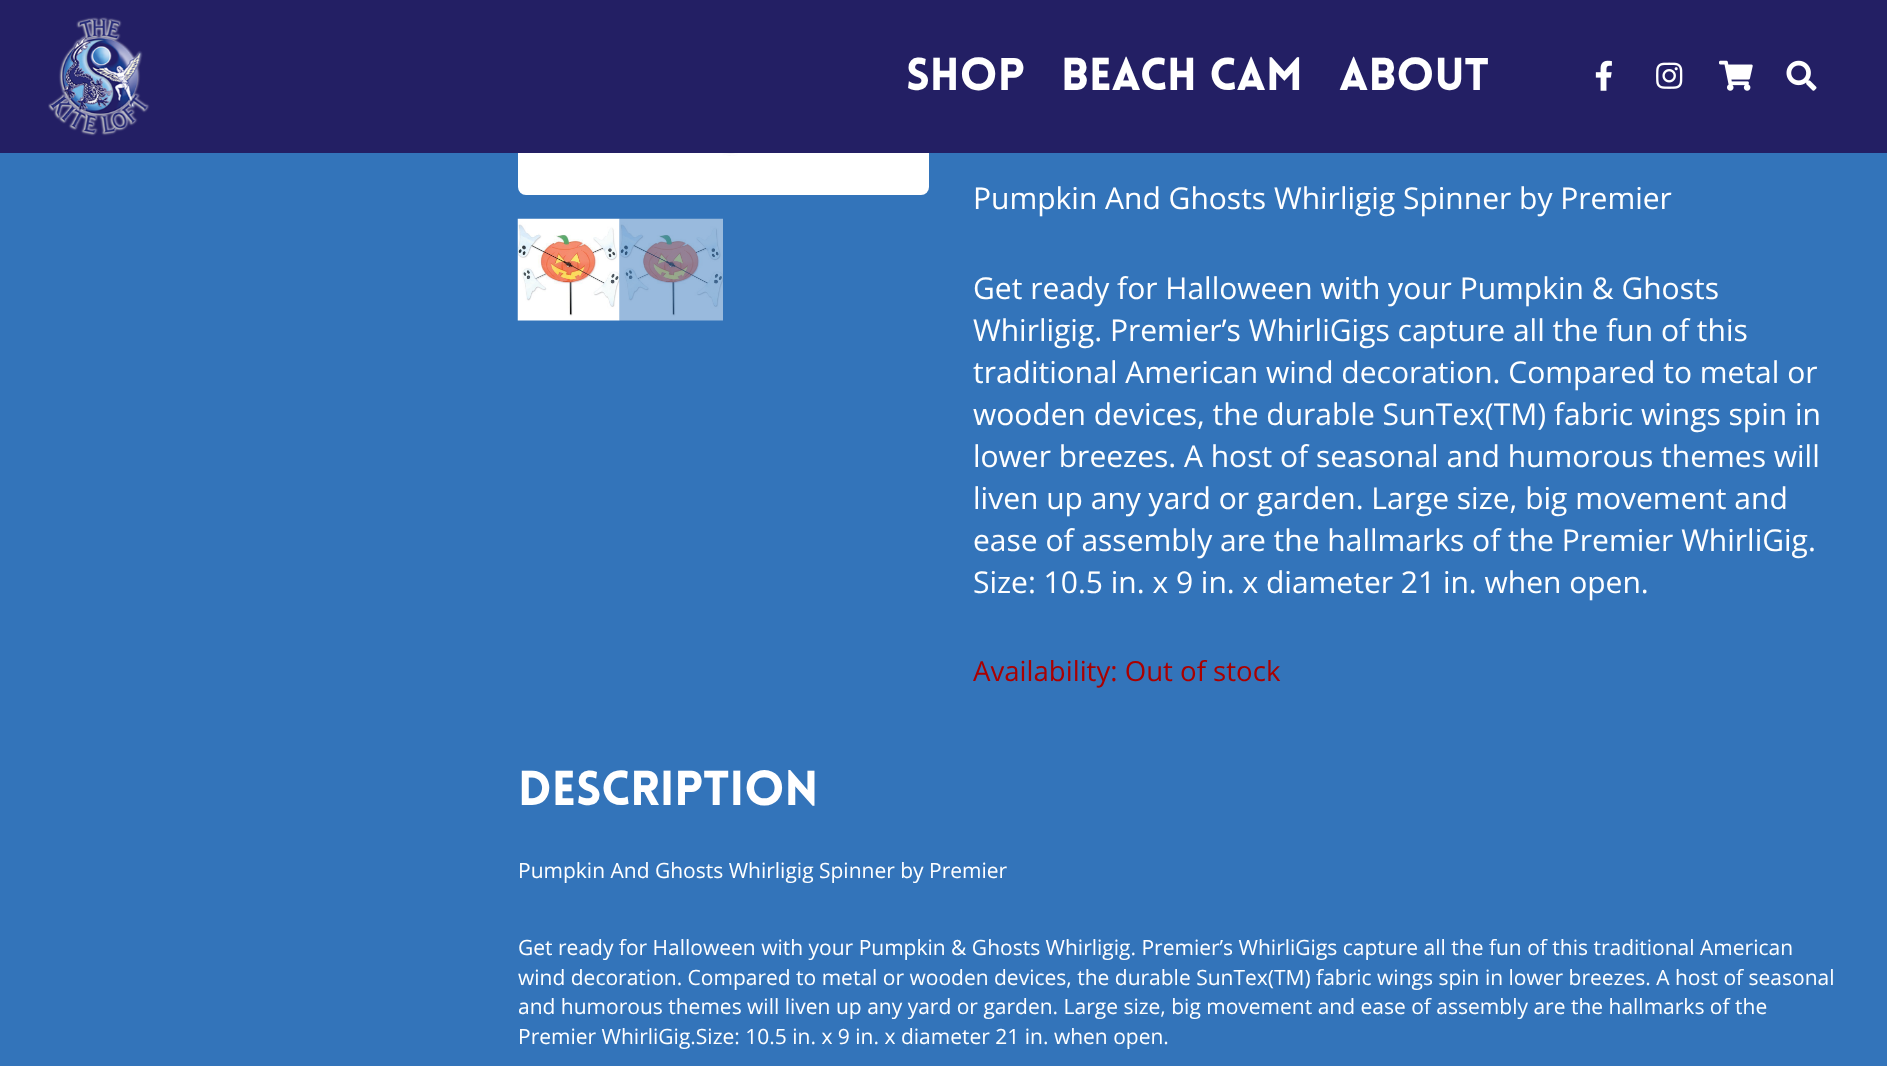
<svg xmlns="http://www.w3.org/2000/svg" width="1887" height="1066">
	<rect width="100%" height="100%" fill="#3374BA" />
	<rect x="518" y="-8" width="411" height="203" rx="8" fill="#FFFFFF" />
	<rect x="0" y="0" width="1887" height="153" fill="#231F64" />
	<image x="48" y="17" width="102" height="119" href="assets/img1.png" />
	<g font-family="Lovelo" font-size="45" font-weight="900" fill="#FFFFFF">
		<text x="906" y="90">SHOP</text>
		<text x="1061" y="90">BEACH CAM</text>
		<text x="1339" y="90">ABOUT</text>
	</g>
	<image x="1595" y="60" width="17" height="31" href="assets/img2.png" />
	<image x="1656" y="62" width="27" height="27" href="assets/img3.png" />
	<image x="1719" y="60" width="34" height="31" href="assets/img4.png" />
	<image x="1786" y="60" width="31" height="31" href="assets/img5.png" />
	<image x="557" y="153" width="348" height="3" href="assets/img6.png" />
	<image x="517" y="218" width="103" height="103" href="assets/img7.png" />
	<image x="619" y="218" width="104" height="103" href="assets/img8.png" />
	<g font-family="Open Sans" font-size="30" fill="#FFFFFF">
		<text x="973" y="209">Pumpkin And Ghosts Whirligig Spinner by Premier</text>
		<text x="973" y="299">Get ready for Halloween with your Pumpkin &amp; Ghosts</text>
		<text x="973" y="341">Whirligig. Premier’s WhirliGigs capture all the fun of this</text>
		<text x="973" y="383">traditional American wind decoration. Compared to metal or</text>
		<text x="973" y="425">wooden devices, the durable SunTex(TM) fabric wings spin in</text>
		<text x="973" y="467">lower breezes. A host of seasonal and humorous themes will</text>
		<text x="973" y="509">liven up any yard or garden. Large size, big movement and</text>
		<text x="973" y="551">ease of assembly are the hallmarks of the Premier WhirliGig.</text>
		<text x="973" y="593">Size: 10.5 in. x 9 in. x diameter 21 in. when open.</text>
	</g>
	<text x="973" y="681" font-family="Open Sans" font-size="27.6" fill="#AA0000">Availability: Out of stock</text>
	<text x="518" y="805" font-family="Lovelo" font-size="48" font-weight="900" fill="#FFFFFF">Description</text>
	<g font-family="Open Sans" font-size="21" fill="#FFFFFF">
		<text x="518" y="878">Pumpkin And Ghosts Whirligig Spinner by Premier</text>
		<text x="518" y="955">Get ready for Halloween with your Pumpkin &amp; Ghosts Whirligig. Premier’s WhirliGigs capture all the fun of this traditional American</text>
		<text x="518" y="985">wind decoration. Compared to metal or wooden devices, the durable SunTex(TM) fabric wings spin in lower breezes. A host of seasonal</text>
		<text x="518" y="1014">and humorous themes will liven up any yard or garden. Large size, big movement and ease of assembly are the hallmarks of the</text>
		<text x="518" y="1044">Premier WhirliGig.Size: 10.5 in. x 9 in. x diameter 21 in. when open.</text>
	</g>
</svg>
